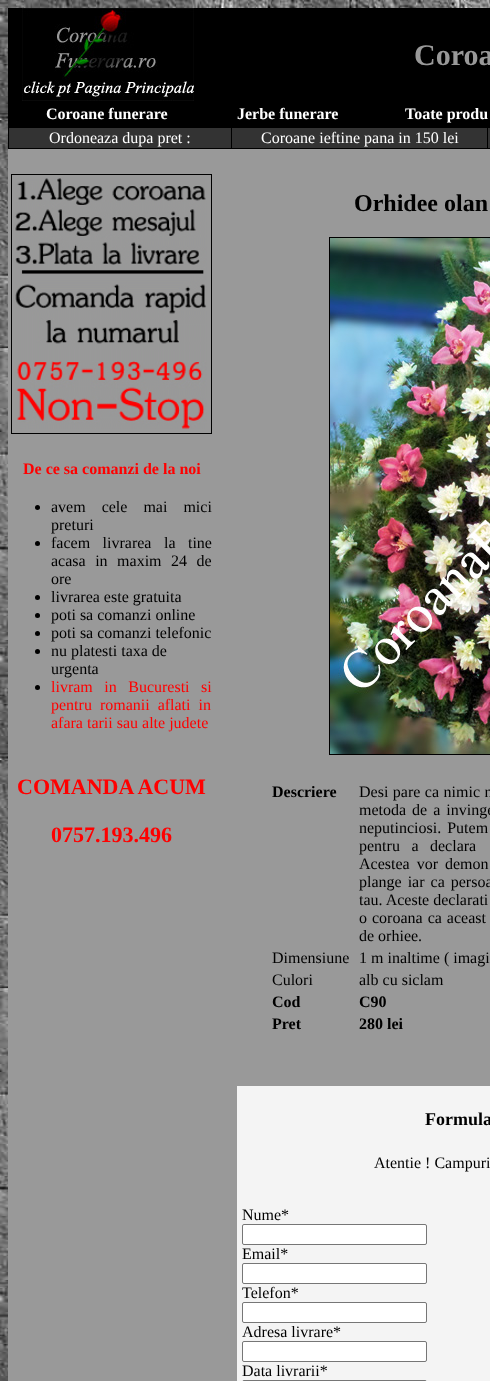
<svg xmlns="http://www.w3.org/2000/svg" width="490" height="1381">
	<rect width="100%" height="100%" fill="#FFFFFF" />
	<image x="0" y="0" width="490" height="1381" href="assets/img1.png" />
	<rect x="8" y="8" width="482" height="141" fill="#000000" />
	<image x="22" y="8" width="172" height="93" href="assets/img2.png" />
	<text x="414" y="65" font-family="Liberation Serif" font-size="30" font-weight="700" fill="#999999">Coroa</text>
	<g font-family="Liberation Serif" font-size="16" font-weight="700" fill="#FFFFFF">
		<text x="46" y="119">Coroane funerare</text>
		<text x="237" y="119">Jerbe funerare</text>
		<text x="405" y="119">Toate produ</text>
	</g>
	<rect x="9" y="128" width="222" height="20" fill="#333333" />
	<text x="49" y="143" font-family="Liberation Serif" font-size="16" fill="#FFFFFF">Ordoneaza dupa pret :</text>
	<rect x="232" y="128" width="255" height="20" fill="#333333" />
	<text x="261" y="143" font-family="Liberation Serif" font-size="16" fill="#FFFFFF">Coroane ieftine pana in 150 lei</text>
	<rect x="488" y="128" width="2" height="20" fill="#333333" />
	<rect x="8" y="149" width="482" height="1232" fill="#999999" />
	<text x="354" y="211" font-family="Liberation Serif" font-size="24" font-weight="700" fill="#000000">Orhidee olan</text>
	<rect x="329.5" y="237.5" width="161" height="517" fill="none" stroke="#000000" />
	<image x="330" y="238" width="160" height="516" href="assets/img3.png" />
	<rect x="11.5" y="174.5" width="200" height="259" fill="none" stroke="#000000" />
	<image x="15" y="178" width="192" height="251" href="assets/img4.png" />
	<text x="23" y="474" font-family="Liberation Serif" font-size="16" font-weight="700" fill="#FF0000">De ce sa comanzi de la noi</text>
	<circle cx="37.5" cy="507.5" r="2.5" fill="#000000" />
	<g font-family="Liberation Serif" font-size="16" fill="#000000">
		<text x="51" y="512" word-spacing="12">avem cele mai mici</text>
		<text x="51" y="530">preturi</text>
	</g>
	<circle cx="37.5" cy="543.5" r="2.5" fill="#000000" />
	<g font-family="Liberation Serif" font-size="16" fill="#000000">
		<text x="51" y="548" word-spacing="8.5">facem livrarea la tine</text>
		<text x="51" y="566" word-spacing="5.5">acasa in maxim 24 de</text>
		<text x="51" y="584">ore</text>
	</g>
	<circle cx="37.5" cy="597.5" r="2.5" fill="#000000" />
	<text x="51" y="602" font-family="Liberation Serif" font-size="16" fill="#000000">livrarea este gratuita</text>
	<circle cx="37.5" cy="615.5" r="2.5" fill="#000000" />
	<text x="51" y="620" font-family="Liberation Serif" font-size="16" fill="#000000">poti sa comanzi online</text>
	<circle cx="37.5" cy="633.5" r="2.5" fill="#000000" />
	<text x="51" y="638" font-family="Liberation Serif" font-size="16" fill="#000000">poti sa comanzi telefonic</text>
	<circle cx="37.5" cy="651.5" r="2.5" fill="#000000" />
	<g font-family="Liberation Serif" font-size="16" fill="#000000">
		<text x="51" y="656">nu platesti taxa de</text>
		<text x="51" y="674">urgenta</text>
	</g>
	<circle cx="37.5" cy="687.5" r="2.5" fill="#000000" />
	<g font-family="Liberation Serif" font-size="16" fill="#FF0000">
		<text x="51" y="692" word-spacing="7.5">livram in Bucuresti si</text>
		<text x="51" y="710" word-spacing="4">pentru romanii aflati in</text>
		<text x="51" y="728">afara tarii sau alte judete</text>
	</g>
	<g font-family="Liberation Serif" font-size="22" font-weight="700" fill="#FF0000">
		<text x="17" y="794">COMANDA ACUM</text>
		<text x="51" y="842">0757.193.496</text>
	</g>
	<text x="272" y="797" font-family="Liberation Serif" font-size="16" font-weight="700" fill="#000000">Descriere</text>
	<g font-family="Liberation Serif" font-size="16" fill="#000000">
		<text x="359" y="797" word-spacing="0.5">Desi pare ca nimic n</text>
		<text x="359" y="815" word-spacing="2">metoda de a invinge</text>
		<text x="359" y="833" word-spacing="2">neputinciosi. Putem</text>
		<text x="359" y="851" word-spacing="7.5">pentru a declara</text>
		<text x="359" y="869" word-spacing="3">Acestea vor demon</text>
		<text x="359" y="887" word-spacing="2">plange iar ca persoa</text>
		<text x="359" y="905">tau. Aceste declarati</text>
		<text x="359" y="923" word-spacing="1">o coroana ca aceast</text>
		<text x="359" y="941">de orhiee.</text>
		<text x="272" y="963">Dimensiune</text>
		<text x="359" y="963">1 m inaltime ( imagi</text>
		<text x="272" y="985">Culori</text>
		<text x="359" y="985">alb cu siclam</text>
	</g>
	<g font-family="Liberation Serif" font-size="16" font-weight="700" fill="#000000">
		<text x="272" y="1007">Cod</text>
		<text x="359" y="1007">C90</text>
		<text x="272" y="1029">Pret</text>
		<text x="359" y="1029">280 lei</text>
	</g>
	<rect x="237" y="1086" width="253" height="295" fill="#F4F4F4" />
	<text x="425" y="1125" font-family="Liberation Serif" font-size="18" font-weight="700" fill="#000000">Formula</text>
	<g font-family="Liberation Serif" font-size="16" fill="#000000">
		<text x="374" y="1168">Atentie ! Campuri</text>
		<text x="242" y="1220">Nume*</text>
	</g>
	<rect x="242.5" y="1224.5" width="184" height="20" rx="1.5" fill="#FFFFFF" stroke="#767676" />
	<text x="242" y="1259" font-family="Liberation Serif" font-size="16" fill="#000000">Email*</text>
	<rect x="242.5" y="1263.5" width="184" height="20" rx="1.5" fill="#FFFFFF" stroke="#767676" />
	<text x="242" y="1298" font-family="Liberation Serif" font-size="16" fill="#000000">Telefon*</text>
	<rect x="242.5" y="1302.5" width="184" height="20" rx="1.5" fill="#FFFFFF" stroke="#767676" />
	<text x="242" y="1337" font-family="Liberation Serif" font-size="16" fill="#000000">Adresa livrare*</text>
	<rect x="242.5" y="1341.5" width="184" height="20" rx="1.5" fill="#FFFFFF" stroke="#767676" />
	<text x="242" y="1376" font-family="Liberation Serif" font-size="16" fill="#000000">Data livrarii*</text>
	<rect x="242.5" y="1380.5" width="184" height="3" rx="1.5" fill="none" stroke="#767676" />
</svg>
